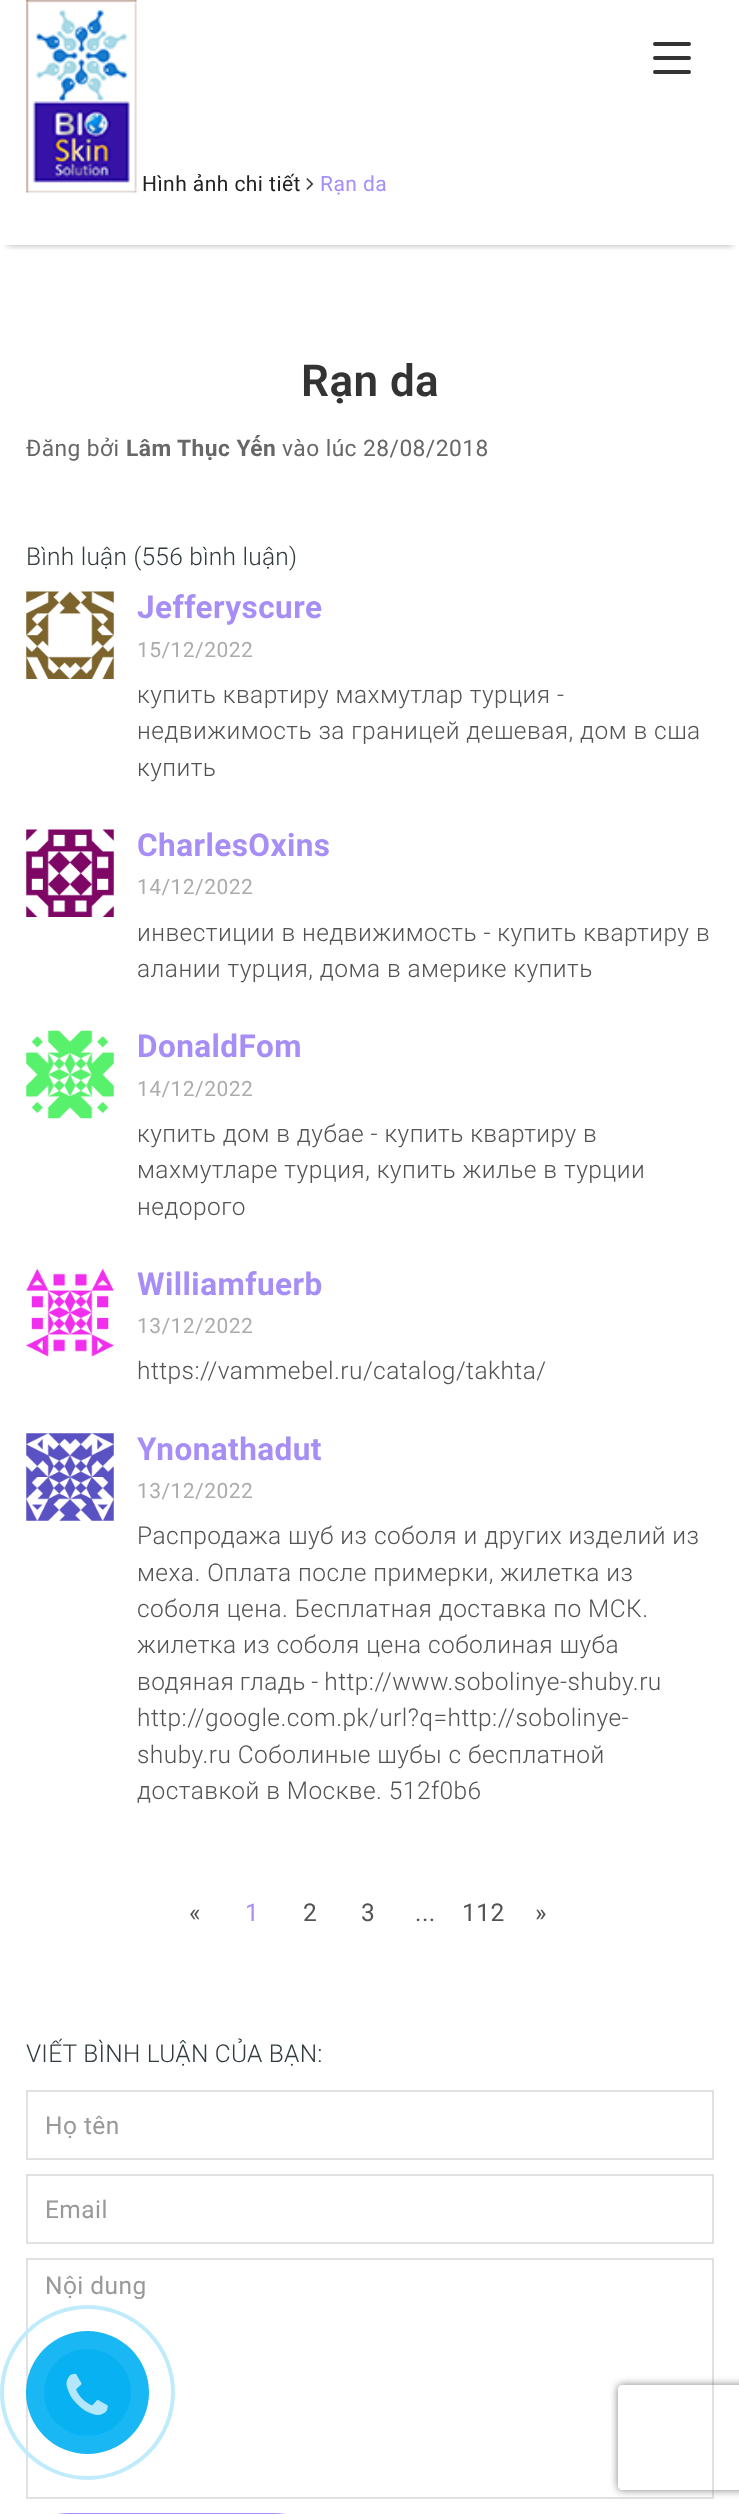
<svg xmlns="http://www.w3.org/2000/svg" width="739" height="2514">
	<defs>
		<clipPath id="clip1"><rect x="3" y="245" width="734" height="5" /></clipPath>
		<clipPath id="clip2"><path d="M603 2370H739V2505H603ZM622 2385H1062C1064 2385 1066 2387 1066 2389V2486C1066 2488 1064 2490 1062 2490H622C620 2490 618 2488 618 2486V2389C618 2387 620 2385 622 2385Z" clip-rule="evenodd" /></clipPath>
	</defs>
	<rect width="100%" height="100%" fill="#FFFFFF" />
	<g clip-path="url(#clip1)">
		<rect x="7" y="137" width="726" height="108" fill="#000000" fill-opacity="0.33" filter="blur(3.5px)" />
	</g>
	<image x="134" y="183" width="1" height="2" href="assets/img2.png" />
	<image x="26" y="0" width="111" height="193" href="assets/img1.png" />
	<rect x="653" y="56" width="38" height="4" rx="2" fill="#333333" />
	<rect x="653" y="42" width="38" height="4" rx="2" fill="#333333" />
	<rect x="653" y="70" width="38" height="4" rx="2" fill="#333333" />
	<text x="142" y="191" font-family="Roboto" font-size="21" letter-spacing="0.45" fill="#222222">Hình ảnh chi tiết</text>
	<image x="306" y="178" width="8" height="12" href="assets/img3.png" />
	<text x="320" y="191" font-family="Roboto" font-size="21" letter-spacing="0.45" fill="#A78EF6">Rạn da</text>
	<text x="301" y="396" font-family="Roboto" font-size="44" font-weight="600" letter-spacing="0.45" fill="#333333">Rạn da</text>
	<text x="26" y="456" font-family="Roboto" font-size="22.75" letter-spacing="0.45" fill="#676767">Đăng bởi</text>
	<text x="126" y="456" font-family="Roboto" font-size="22.75" font-weight="700" letter-spacing="0.45" fill="#676767">Lâm Thục Yến</text>
	<text x="282" y="456" font-family="Roboto" font-size="22.75" letter-spacing="0.45" fill="#676767">vào lúc 28/08/2018</text>
	<text x="26" y="565" font-family="Roboto" font-size="24.5" font-weight="300" letter-spacing="0.25" fill="#323C3F">Bình luận (556 bình luận)</text>
	<image x="26" y="591" width="88" height="88" href="assets/img4.png" />
	<text x="137" y="618" font-family="Roboto" font-size="31.5" font-weight="700" letter-spacing="0.45" fill="#A78EF6">Jefferyscure</text>
	<text x="137" y="657" font-family="Roboto" font-size="21" letter-spacing="0.45" fill="#ACACAC">15/12/2022</text>
	<g font-family="Roboto" font-size="24.5" font-weight="300" letter-spacing="0.45" fill="#535353">
		<text x="137" y="703">купить квартиру махмутлар турция -</text>
		<text x="137" y="739">недвижимость за границей дешевая, дом в сша</text>
		<text x="137" y="776">купить</text>
	</g>
	<image x="26" y="829" width="88" height="88" href="assets/img5.png" />
	<text x="137" y="856" font-family="Roboto" font-size="31.5" font-weight="700" letter-spacing="0.45" fill="#A78EF6">CharlesOxins</text>
	<text x="137" y="894" font-family="Roboto" font-size="21" letter-spacing="0.45" fill="#ACACAC">14/12/2022</text>
	<g font-family="Roboto" font-size="24.5" font-weight="300" letter-spacing="0.45" fill="#535353">
		<text x="137" y="941">инвестиции в недвижимость - купить квартиру в</text>
		<text x="137" y="977">алании турция, дома в америке купить</text>
	</g>
	<image x="26" y="1030" width="88" height="89" href="assets/img6.png" />
	<text x="137" y="1057" font-family="Roboto" font-size="31.5" font-weight="700" letter-spacing="0.45" fill="#A78EF6">DonaldFom</text>
	<text x="137" y="1096" font-family="Roboto" font-size="21" letter-spacing="0.45" fill="#ACACAC">14/12/2022</text>
	<g font-family="Roboto" font-size="24.5" font-weight="300" letter-spacing="0.45" fill="#535353">
		<text x="137" y="1142">купить дом в дубае - купить квартиру в</text>
		<text x="137" y="1178">махмутларе турция, купить жилье в турции</text>
		<text x="137" y="1215">недорого</text>
	</g>
	<image x="26" y="1268" width="88" height="89" href="assets/img7.png" />
	<text x="137" y="1295" font-family="Roboto" font-size="31.5" font-weight="700" letter-spacing="0.45" fill="#A78EF6">Williamfuerb</text>
	<text x="137" y="1333" font-family="Roboto" font-size="21" letter-spacing="0.45" fill="#ACACAC">13/12/2022</text>
	<text x="137" y="1379" font-family="Roboto" font-size="24.5" font-weight="300" letter-spacing="0.45" fill="#535353">https://vammebel.ru/catalog/takhta/</text>
	<image x="26" y="1433" width="88" height="88" href="assets/img8.png" />
	<text x="137" y="1460" font-family="Roboto" font-size="31.5" font-weight="700" letter-spacing="0.45" fill="#A78EF6">Ynonathadut</text>
	<text x="137" y="1498" font-family="Roboto" font-size="21" letter-spacing="0.45" fill="#ACACAC">13/12/2022</text>
	<g font-family="Roboto" font-size="24.5" font-weight="300" letter-spacing="0.45" fill="#535353">
		<text x="137" y="1544">Распродажа шуб из соболя и других изделий из</text>
		<text x="137" y="1581">меха. Оплата после примерки, жилетка из</text>
		<text x="137" y="1617">соболя цена. Бесплатная доставка по МСК.</text>
		<text x="137" y="1653">жилетка из соболя цена соболиная шуба</text>
		<text x="137" y="1690" word-spacing="-1">водяная гладь - http://www.sobolinye-shuby.ru</text>
		<text x="137" y="1726">http://google.com.pk/url?q=http://sobolinye-</text>
		<text x="137" y="1763">shuby.ru Соболиные шубы с бесплатной</text>
		<text x="137" y="1799">доставкой в Москве. 512f0b6</text>
	</g>
	<text x="189" y="1921" font-family="Roboto" font-size="24.5" letter-spacing="0.45" fill="#535353">«</text>
	<text x="245" y="1921" font-family="Roboto" font-size="24.5" letter-spacing="0.45" fill="#A78EF6">1</text>
	<g font-family="Roboto" font-size="24.5" letter-spacing="0.45" fill="#535353">
		<text x="303" y="1921">2</text>
		<text x="361" y="1921">3</text>
		<text x="415" y="1921">...</text>
		<text x="462" y="1921">112</text>
		<text x="535" y="1921">»</text>
	</g>
	<text x="26" y="2062" font-family="Roboto" font-size="24.5" font-weight="300" letter-spacing="0.25" fill="#323C3F">VIẾT BÌNH LUẬN CỦA BẠN:</text>
	<rect x="27" y="2091" width="686" height="68" fill="none" stroke="#E1E1E1" stroke-width="2" />
	<text x="45" y="2134" font-family="Roboto" font-size="24.5" letter-spacing="0.45" fill="#999999">Họ tên</text>
	<rect x="27" y="2175" width="686" height="68" fill="none" stroke="#E1E1E1" stroke-width="2" />
	<text x="45" y="2218" font-family="Roboto" font-size="24.5" letter-spacing="0.45" fill="#999999">Email</text>
	<rect x="27" y="2259" width="686" height="239" fill="none" stroke="#E1E1E1" stroke-width="2" />
	<text x="45" y="2294" font-family="Roboto" font-size="24.5" letter-spacing="0.45" fill="#999999">Nội dung</text>
	<rect x="28" y="2515" width="287" height="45" rx="42" fill="none" stroke="#A78EF6" stroke-width="4" />
	<circle cx="87.5" cy="2392.5" r="85.5" fill="none" stroke="#BFEBFC" stroke-width="4" />
	<circle cx="87.5" cy="2392.5" r="61.5" fill="#00AFF2" fill-opacity="0.9" />
	<circle cx="87.5" cy="2392.5" r="43.5" fill="#08B1F2" />
	<image x="66" y="2373" width="42" height="42" href="assets/img9.png" />
	<g clip-path="url(#clip2)">
		<rect x="618" y="2385" width="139" height="105" rx="4" fill="#808080" filter="blur(4.5px)" />
	</g>
</svg>
